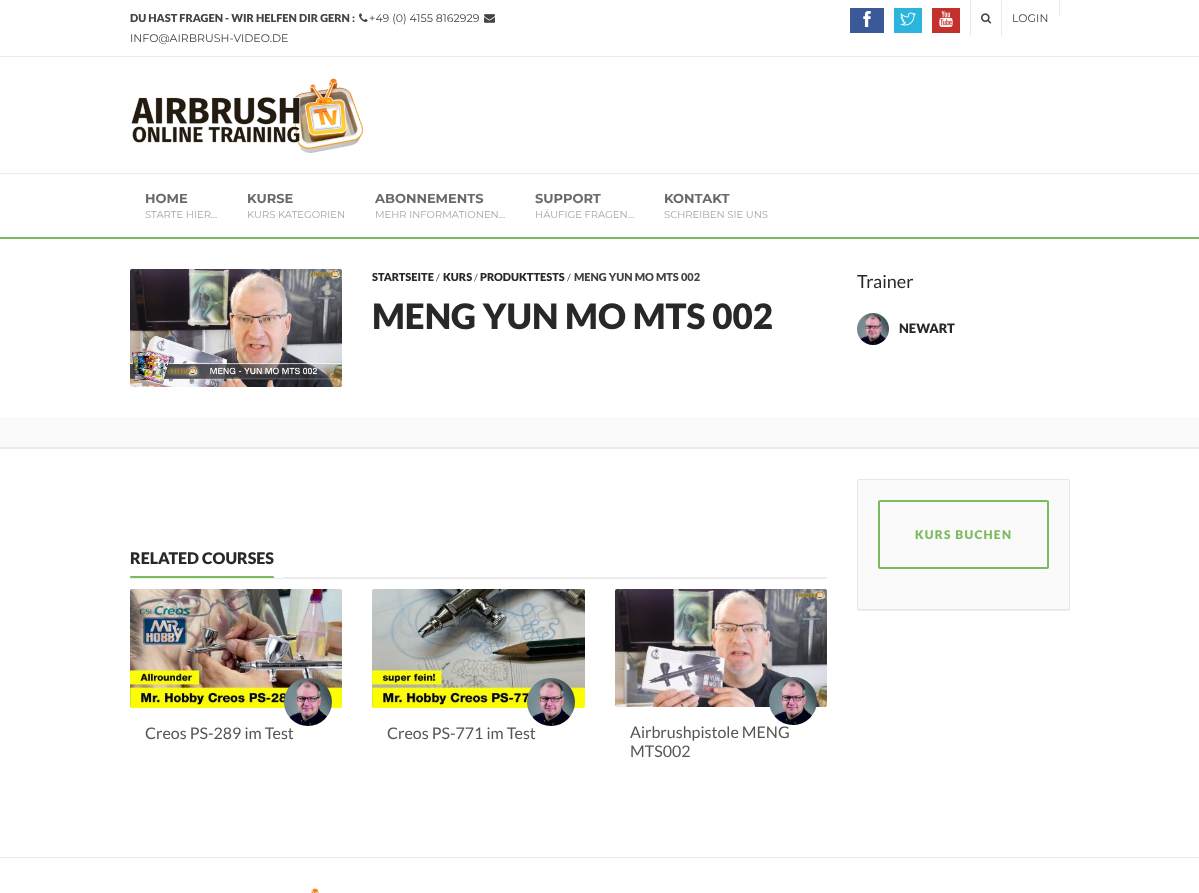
<svg xmlns="http://www.w3.org/2000/svg" width="1199" height="893">
	<rect width="100%" height="100%" fill="#FFFFFF" />
	<rect x="0" y="56" width="1199" height="1" fill="#EBEBEB" />
	<text x="130" y="22" font-family="Lato" font-size="11" font-weight="900" fill="#444444">DU HAST FRAGEN - WIR HELFEN DIR GERN :</text>
	<image x="359" y="13" width="9" height="9" href="assets/img1.png" />
	<text x="369" y="22" font-family="Montserrat" font-size="11" fill="#444444">+49 (0) 4155 8162929</text>
	<image x="484" y="14" width="11" height="9" href="assets/img2.png" />
	<text x="130" y="42" font-family="Montserrat" font-size="11" fill="#444444">INFO@AIRBRUSH-VIDEO.DE</text>
	<rect x="850" y="8" width="34" height="25" fill="#3B5998" />
	<image x="863" y="11" width="8" height="16" href="assets/img3.png" />
	<rect x="894" y="8" width="28" height="25" fill="#2BB5DC" />
	<image x="900" y="12" width="16" height="14" href="assets/img4.png" />
	<rect x="932" y="8" width="28" height="25" fill="#C4302B" />
	<image x="939" y="11" width="14" height="16" href="assets/img5.png" />
	<rect x="970" y="0" width="1" height="36" fill="#EBEBEB" />
	<image x="981" y="13" width="11" height="11" href="assets/img6.png" />
	<rect x="1059" y="0" width="1" height="16" fill="#EBEBEB" />
	<rect x="1001" y="0" width="1" height="36" fill="#EBEBEB" />
	<text x="1012" y="22" font-family="Montserrat" font-size="11" fill="#444444">LOGIN</text>
	<image x="131" y="78" width="232" height="75" href="assets/img7.png" />
	<rect x="0" y="173" width="1199" height="1" fill="#EBEBEB" />
	<rect x="0" y="237" width="1199" height="2" fill="#7BBB5E" />
	<text x="145" y="203" font-family="Montserrat" font-size="13" font-weight="700" fill="#696969">HOME</text>
	<text x="145" y="218" font-family="Montserrat" font-size="10" fill="#A5A5A5">STARTE HIER…</text>
	<text x="247" y="203" font-family="Montserrat" font-size="13" font-weight="700" fill="#696969">KURSE</text>
	<text x="247" y="218" font-family="Montserrat" font-size="10" fill="#A5A5A5">KURS KATEGORIEN</text>
	<text x="375" y="203" font-family="Montserrat" font-size="13" font-weight="700" fill="#696969">ABONNEMENTS</text>
	<text x="375" y="218" font-family="Montserrat" font-size="10" fill="#A5A5A5">MEHR INFORMATIONEN…</text>
	<text x="535" y="203" font-family="Montserrat" font-size="13" font-weight="700" fill="#696969">SUPPORT</text>
	<text x="535" y="218" font-family="Montserrat" font-size="10" fill="#A5A5A5">HÄUFIGE FRAGEN…</text>
	<text x="664" y="203" font-family="Montserrat" font-size="13" font-weight="700" fill="#696969">KONTAKT</text>
	<text x="664" y="218" font-family="Montserrat" font-size="10" fill="#A5A5A5">SCHREIBEN SIE UNS</text>
	<rect x="0" y="417" width="1199" height="30" fill="#FAFAFA" />
	<image x="130" y="269" width="212" height="118" href="assets/img8.png" />
	<text x="372" y="281" font-family="Lato" font-size="11" font-weight="900" fill="#282828">STARTSEITE</text>
	<text x="436" y="281" font-family="Lato" font-size="10" fill="#444444">/</text>
	<text x="443" y="281" font-family="Lato" font-size="11" font-weight="900" fill="#282828">KURS</text>
	<text x="474" y="281" font-family="Lato" font-size="10" fill="#444444">/</text>
	<text x="480" y="281" font-family="Lato" font-size="11" font-weight="900" fill="#282828">PRODUKTTESTS</text>
	<text x="567" y="281" font-family="Lato" font-size="10" fill="#444444">/</text>
	<text x="574" y="281" font-family="Lato" font-size="11" font-weight="900" fill="#444444">MENG YUN MO MTS 002</text>
	<text x="372" y="329" font-family="Lato" font-size="35" font-weight="900" fill="#282828">MENG YUN MO MTS 002</text>
	<text x="857" y="288" font-family="Lato" font-size="18" fill="#282828">Trainer</text>
	<image x="857" y="313" width="32" height="32" href="assets/img9.png" />
	<text x="899" y="333" font-family="Lato" font-size="13" font-weight="900" fill="#282828">NEWART</text>
	<rect x="0" y="447" width="1199" height="2" fill="#EBEBEB" />
	<rect x="857" y="480" width="213" height="131" rx="2" fill="#EEEEEE" filter="blur(0.5px)" />
	<rect x="857.5" y="479.5" width="212" height="130" rx="1.5" fill="#FAFAFA" stroke="#E6E6E6" />
	<rect x="879" y="501" width="169" height="67" rx="1" fill="none" stroke="#7BBB5E" stroke-width="2" />
	<text x="915" y="539" font-family="Lato" font-size="12" font-weight="900" letter-spacing="1.25" fill="#7BBB5E">KURS BUCHEN</text>
	<rect x="130" y="577" width="697" height="2" fill="#EBEBEB" />
	<text x="130" y="564" font-family="Lato" font-size="16" font-weight="900" fill="#282828">RELATED COURSES</text>
	<rect x="130" y="576" width="144" height="2" rx="1" fill="#7BBB5E" />
	<rect x="274" y="576" width="10" height="2" rx="1" fill="#FFFFFF" />
	<image x="130" y="589" width="212" height="119" href="assets/img10.png" />
	<image x="284" y="678" width="48" height="48" href="assets/img11.png" />
	<text x="145" y="739" font-family="Lato" font-size="16" fill="#555555">Creos PS-289 im Test</text>
	<image x="372" y="589" width="213" height="119" href="assets/img12.png" />
	<image x="527" y="678" width="48" height="48" href="assets/img13.png" />
	<text x="387" y="739" font-family="Lato" font-size="16" fill="#555555">Creos PS-771 im Test</text>
	<image x="615" y="589" width="212" height="118" href="assets/img14.png" />
	<image x="769" y="677" width="48" height="48" href="assets/img15.png" />
	<g font-family="Lato" font-size="16" fill="#555555">
		<text x="630" y="738">Airbrushpistole MENG</text>
		<text x="630" y="757">MTS002</text>
	</g>
	<rect x="0" y="857" width="1199" height="1" fill="#EBEBEB" />
	<image x="311" y="888" width="8" height="5" href="assets/img16.png" />
</svg>
